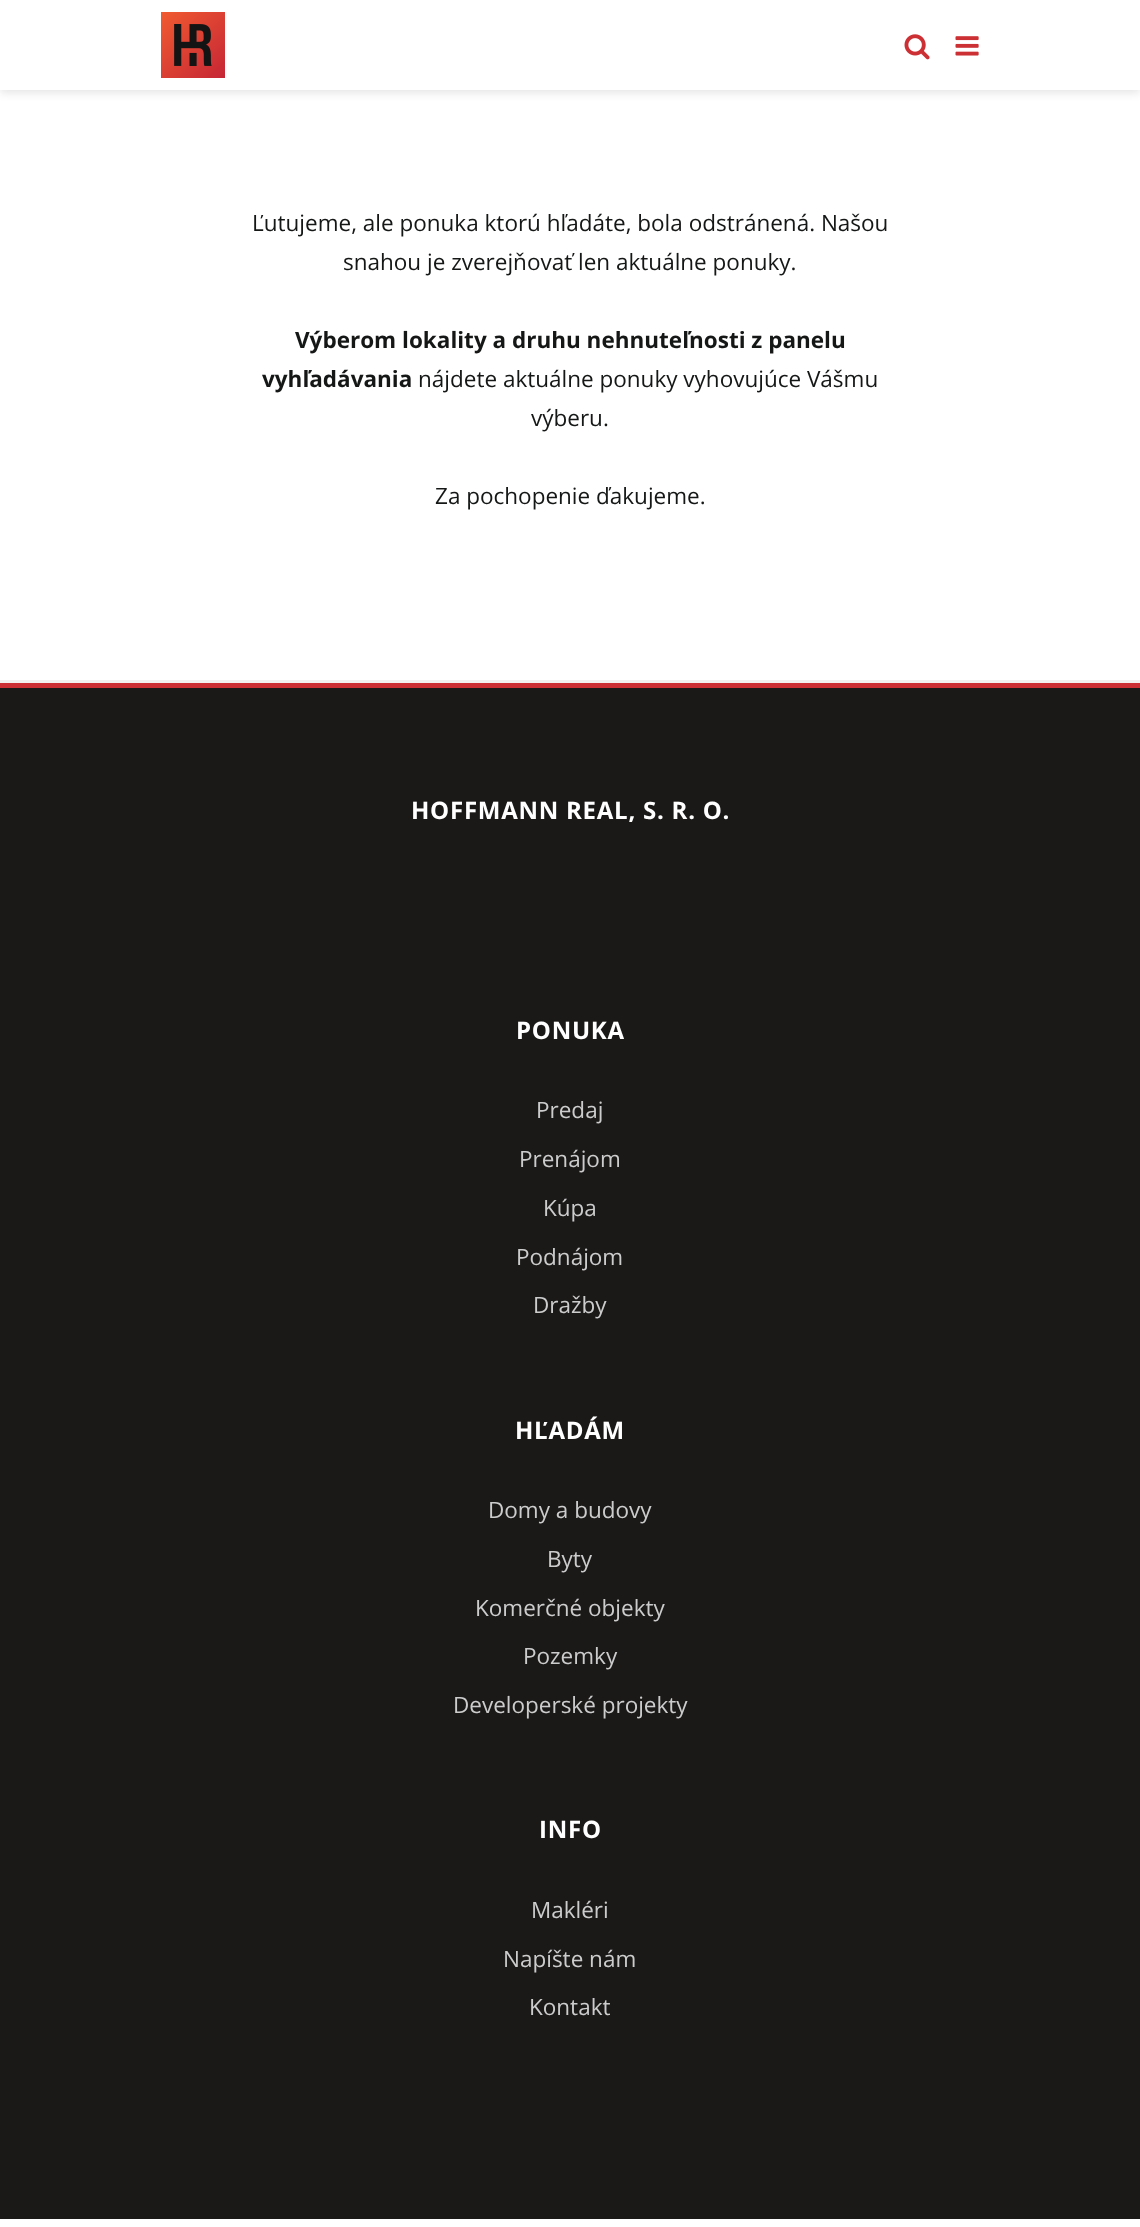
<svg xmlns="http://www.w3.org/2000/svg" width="1140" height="2227">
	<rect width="100%" height="100%" fill="#FFFFFF" />
	<rect x="0" y="3" width="1140" height="90" fill="#000000" fill-opacity="0.1" filter="blur(4px)" />
	<rect x="0" y="0" width="1140" height="90" fill="#FFFFFF" />
	<image x="161" y="12" width="64" height="66" href="assets/img1.png" />
	<image x="904" y="34" width="26" height="26" href="assets/img2.png" />
	<image x="955" y="36" width="24" height="20" href="assets/img3.png" />
	<rect x="0" y="680" width="1140" height="3" fill="#F3F2F1" />
	<g font-family="Open Sans" font-size="22.5" fill="#151616">
		<text x="252" y="231">Ľutujeme, ale ponuka ktorú hľadáte, bola odstránená. Našou</text>
		<text x="343" y="270">snahou je zverejňovať len aktuálne ponuky.</text>
	</g>
	<g font-family="Open Sans" font-size="22.5" font-weight="700" fill="#151616">
		<text x="295" y="348">Výberom lokality a druhu nehnuteľnosti z panelu</text>
		<text x="262" y="387">vyhľadávania</text>
	</g>
	<g font-family="Open Sans" font-size="22.5" fill="#151616">
		<text x="418" y="387">nájdete aktuálne ponuky vyhovujúce Vášmu</text>
		<text x="531" y="426">výberu.</text>
		<text x="435" y="504">Za pochopenie ďakujeme.</text>
	</g>
	<rect x="0" y="688" width="1140" height="1531" fill="#1B1918" />
	<rect x="0" y="683" width="1140" height="5" fill="#CC3034" />
	<g font-family="Open Sans" font-size="24" font-weight="700" letter-spacing="0.75" fill="#FFFFFF">
		<text x="411" y="819">HOFFMANN REAL, S. R. O.</text>
		<text x="516" y="1039">PONUKA</text>
	</g>
	<g font-family="Open Sans" font-size="22.5" fill="#CCCCCC">
		<text x="536" y="1118">Predaj</text>
		<text x="519" y="1167">Prenájom</text>
		<text x="543" y="1216">Kúpa</text>
		<text x="516" y="1265">Podnájom</text>
		<text x="533" y="1313">Dražby</text>
	</g>
	<text x="515" y="1439" font-family="Open Sans" font-size="24" font-weight="700" letter-spacing="0.75" fill="#FFFFFF">HĽADÁM</text>
	<g font-family="Open Sans" font-size="22.5" fill="#CCCCCC">
		<text x="488" y="1518">Domy a budovy</text>
		<text x="547" y="1567">Byty</text>
		<text x="475" y="1616">Komerčné objekty</text>
		<text x="523" y="1664">Pozemky</text>
		<text x="453" y="1713">Developerské projekty</text>
	</g>
	<text x="539" y="1838" font-family="Open Sans" font-size="24" font-weight="700" letter-spacing="0.75" fill="#FFFFFF">INFO</text>
	<g font-family="Open Sans" font-size="22.5" fill="#CCCCCC">
		<text x="531" y="1918">Makléri</text>
		<text x="503" y="1967">Napíšte nám</text>
		<text x="529" y="2015">Kontakt</text>
	</g>
</svg>
